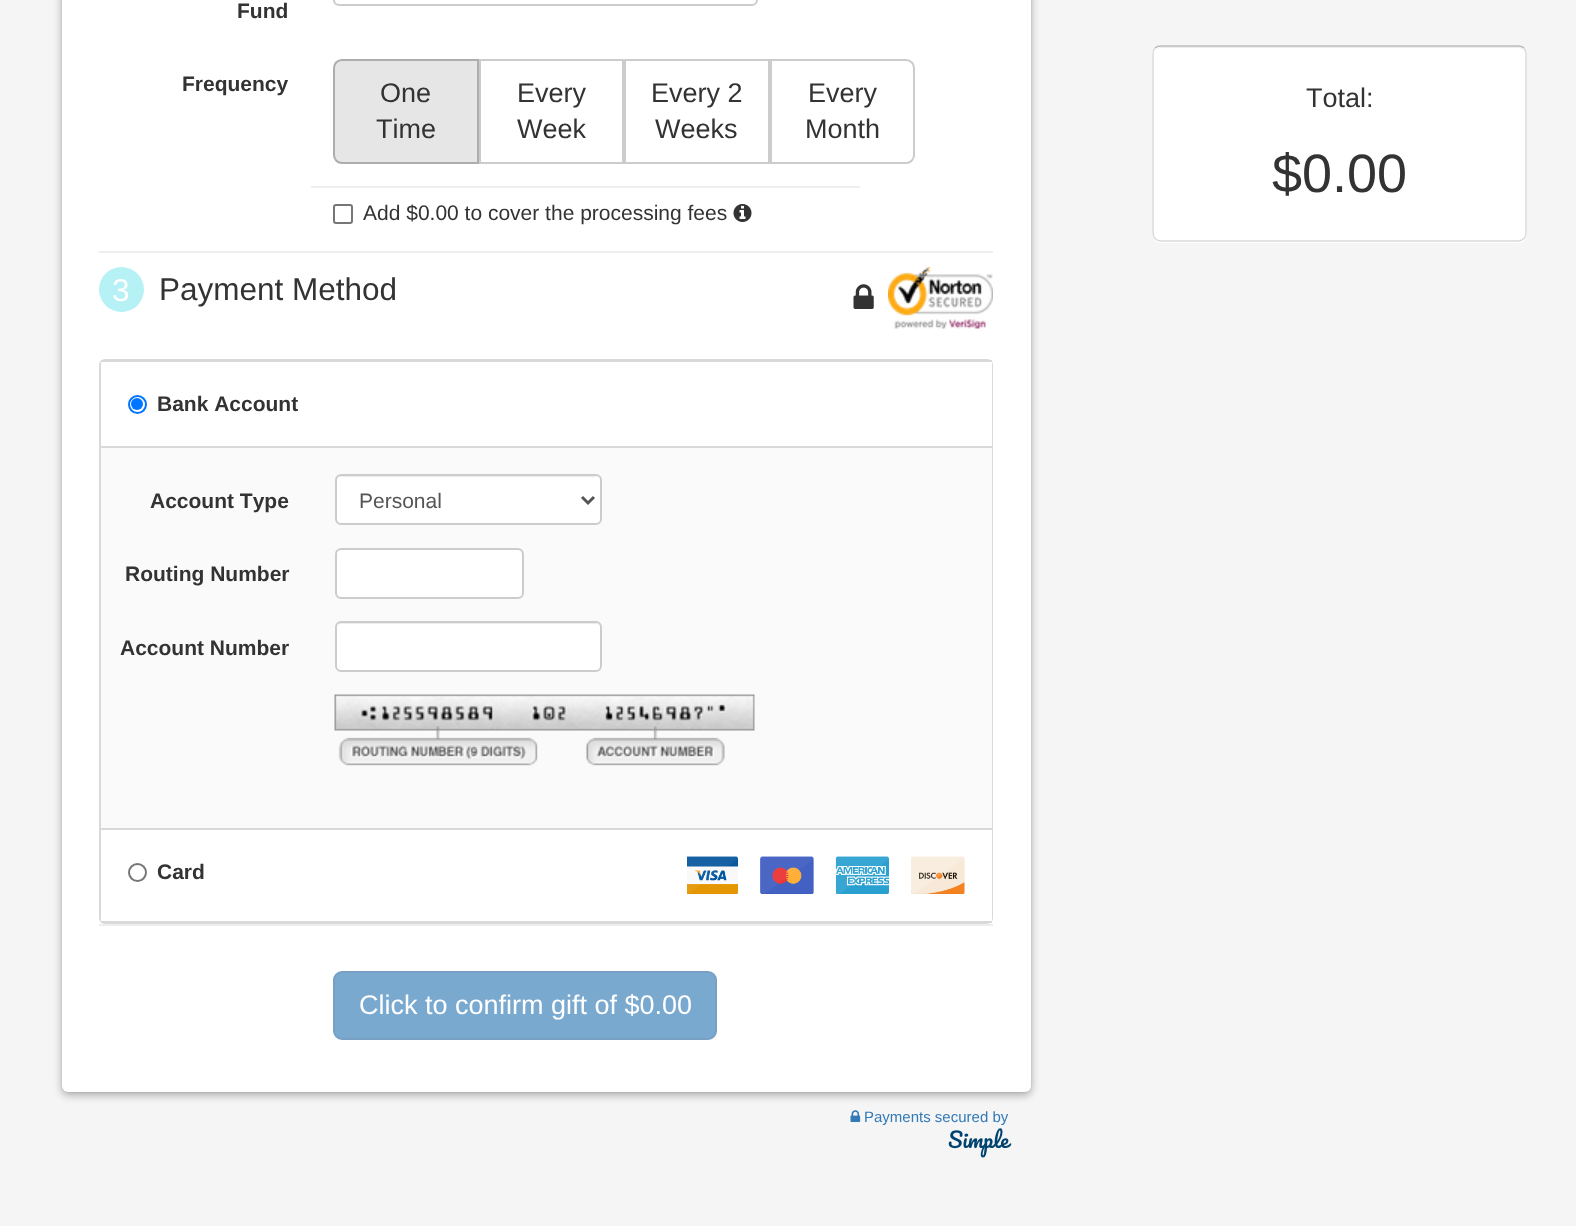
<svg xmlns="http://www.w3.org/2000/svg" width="1576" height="1226">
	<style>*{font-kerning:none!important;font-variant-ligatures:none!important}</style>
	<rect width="100%" height="100%" fill="#F5F5F5" />
	<rect x="62" y="-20" width="969" height="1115" rx="6" fill="#000000" fill-opacity="0.31" filter="blur(4.5px)" />
	<rect x="62" y="-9" width="969" height="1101" rx="6" fill="#000000" fill-opacity="0.1" filter="blur(1px)" />
	<rect x="62" y="-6" width="969" height="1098" rx="6" fill="#FFFFFF" />
	<rect x="334" y="-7" width="423" height="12" rx="5" fill="none" stroke="#CCCCCC" stroke-width="2" />
	<g font-family="Liberation Sans" font-size="21" font-weight="700" fill="#333333">
		<text x="237" y="18">Fund</text>
		<text x="182" y="91">Frequency</text>
	</g>
	<path d="M342 60H478V163H342C337.5 163 334 159.5 334 155V68C334 63.5 337.5 60 342 60Z" fill="#E6E6E6" stroke="#ADADAD" stroke-width="2" />
	<g font-family="Liberation Sans" font-size="27" fill="#333333">
		<text x="380" y="102">One</text>
		<text x="376" y="138">Time</text>
	</g>
	<rect x="480" y="60" width="143" height="103" fill="none" stroke="#CCCCCC" stroke-width="2" />
	<g font-family="Liberation Sans" font-size="27" fill="#333333">
		<text x="517" y="102">Every</text>
		<text x="517" y="138">Week</text>
	</g>
	<rect x="625" y="60" width="144" height="103" fill="none" stroke="#CCCCCC" stroke-width="2" />
	<g font-family="Liberation Sans" font-size="27" fill="#333333">
		<text x="651" y="102">Every 2</text>
		<text x="655" y="138">Weeks</text>
	</g>
	<path d="M771 60H906C910.5 60 914 63.5 914 68V155C914 159.5 910.5 163 906 163H771Z" fill="none" stroke="#CCCCCC" stroke-width="2" />
	<g font-family="Liberation Sans" font-size="27" fill="#333333">
		<text x="808" y="102">Every</text>
		<text x="805" y="138">Month</text>
	</g>
	<rect x="311" y="186" width="549" height="2" fill="#EEEEEE" />
	<rect x="334" y="205" width="18" height="18" rx="2" fill="none" stroke="#767676" stroke-width="2" />
	<text x="363" y="220" font-family="Liberation Sans" font-size="21" fill="#333333">Add $0.00 to cover the processing fees</text>
	<image x="733" y="204" width="19" height="18" href="assets/img1.png" />
	<rect x="99" y="251" width="894" height="2" fill="#EEEEEE" />
	<circle cx="121.5" cy="289.5" r="22.5" fill="#B6F2F5" />
	<text x="112" y="301" font-family="Liberation Sans" font-size="31.5" fill="#FFFFFF">3</text>
	<text x="159" y="300" font-family="Liberation Sans" font-size="31.5" fill="#333333">Payment Method</text>
	<image x="853" y="284" width="21" height="25" href="assets/img2.png" />
	<image x="888" y="267" width="105" height="62" href="assets/img3.png" />
	<rect x="100" y="360" width="892" height="563" rx="5" fill="none" stroke="#D9D9D9" stroke-width="2" />
	<rect x="101" y="362" width="891" height="84" fill="#FFFFFF" />
	<rect x="101" y="360" width="891" height="2" fill="#D9D9D9" />
	<rect x="101" y="446" width="891" height="2" fill="#D9D9D9" />
	<circle cx="137.5" cy="404.5" r="8.5" fill="none" stroke="#0075FF" stroke-width="2" />
	<circle cx="137" cy="404" r="6" fill="#0075FF" />
	<text x="157" y="411" font-family="Liberation Sans" font-size="21" font-weight="700" fill="#333333">Bank Account</text>
	<rect x="101" y="448" width="891" height="380" fill="#FAFAFA" />
	<text x="150" y="508" font-family="Liberation Sans" font-size="21" font-weight="700" fill="#333333">Account Type</text>
	<rect x="335" y="474" width="267" height="51" rx="6" fill="#FFFFFF" />
	<path d="M340 477H596C598 477 600 479 600 482C600 479 598 476 595 476H341C338 476 336 479 336 482C336 479 338 477 340 477Z" fill="#ECECEC" />
	<rect x="336" y="475" width="265" height="49" rx="5" fill="none" stroke="#CCCCCC" stroke-width="2" />
	<path d="M582 497L588 503L594 497" fill="none" stroke="#555555" stroke-width="3" />
	<text x="359" y="508" font-family="Liberation Sans" font-size="21" fill="#555555">Personal</text>
	<text x="125" y="581" font-family="Liberation Sans" font-size="21" font-weight="700" fill="#333333">Routing Number</text>
	<rect x="335" y="548" width="189" height="51" rx="6" fill="#FFFFFF" />
	<path d="M340 550H518C520 550 522 553 522 555C522 552 521 550 518 549H340C337 550 336 552 336 555C336 553 338 550 340 550Z" fill="#ECECEC" />
	<rect x="336" y="549" width="187" height="49" rx="5" fill="none" stroke="#CCCCCC" stroke-width="2" />
	<text x="120" y="655" font-family="Liberation Sans" font-size="21" font-weight="700" fill="#333333">Account Number</text>
	<rect x="335" y="621" width="267" height="51" rx="6" fill="#FFFFFF" />
	<path d="M340 624H596C598 624 600 626 600 628C600 625 598 623 595 623H341C338 623 336 625 336 628C336 626 338 624 340 624Z" fill="#ECECEC" />
	<rect x="336" y="622" width="265" height="49" rx="5" fill="none" stroke="#CCCCCC" stroke-width="2" />
	<image x="334" y="694" width="421" height="72" href="assets/img4.png" />
	<rect x="101" y="830" width="891" height="91" fill="#FFFFFF" />
	<rect x="101" y="828" width="891" height="2" fill="#D9D9D9" />
	<rect x="101" y="921" width="891" height="2" fill="#D9D9D9" />
	<circle cx="137.5" cy="872.5" r="8.5" fill="none" stroke="#767676" stroke-width="2" />
	<text x="157" y="879" font-family="Liberation Sans" font-size="21" font-weight="700" fill="#333333">Card</text>
	<image x="687" y="856" width="278" height="38" href="assets/img5.png" />
	<rect x="99" y="924" width="894" height="2" fill="#EEEEEE" />
	<rect x="334" y="972" width="382" height="67" rx="8" fill="#7AA9D0" stroke="#77A0C4" stroke-width="2" />
	<text x="359" y="1014" font-family="Liberation Sans" font-size="27" fill="#FFFFFF">Click to confirm gift of $0.00</text>
	<path d="M1152 232C1152 238 1155 243 1161 243H1520C1525 242 1527 237 1527 232C1527 237 1523 242 1518 242H1161C1156 242 1152 237 1152 232Z" fill="#FFFFFF" />
	<rect x="1152" y="45" width="375" height="197" rx="9" fill="#FFFFFF" />
	<path d="M1161 48H1518C1522 48 1526 51 1526 56C1526 51 1523 47 1518 47H1162C1157 47 1154 51 1154 56C1154 51 1157 48 1161 48Z" fill="#EDEDED" />
	<path d="M1155 48C1156.5 46.5 1159 46 1161 46H1518C1520 46 1522.5 46.5 1524 48" fill="none" stroke="#BBBBBB" stroke-width="1.5" />
	<path d="M1524 48C1525.5 49.5 1526 52 1526 54V232.5C1526 234.5 1525.5 237 1524 238.5C1522.5 240 1520 241 1518 241H1161C1159 241 1156.5 240 1155 238.5C1153.5 237 1153 234.5 1153 232.5V54C1153 52 1153.5 49.5 1155 48" fill="none" stroke="#DADADA" stroke-width="1.5" />
	<text x="1306" y="107" font-family="Liberation Sans" font-size="27" fill="#333333">Total:</text>
	<text x="1272" y="192" font-family="Liberation Sans" font-size="54" fill="#333333">$0.00</text>
	<image x="850" y="1110" width="11" height="12" href="assets/img6.png" />
	<text x="864" y="1122" font-family="Liberation Sans" font-size="15" fill="#337AB7">Payments secured by</text>
	<text x="948" y="1148" font-family="Pacifico" font-size="21" fill="#004371">Simple</text>
</svg>
